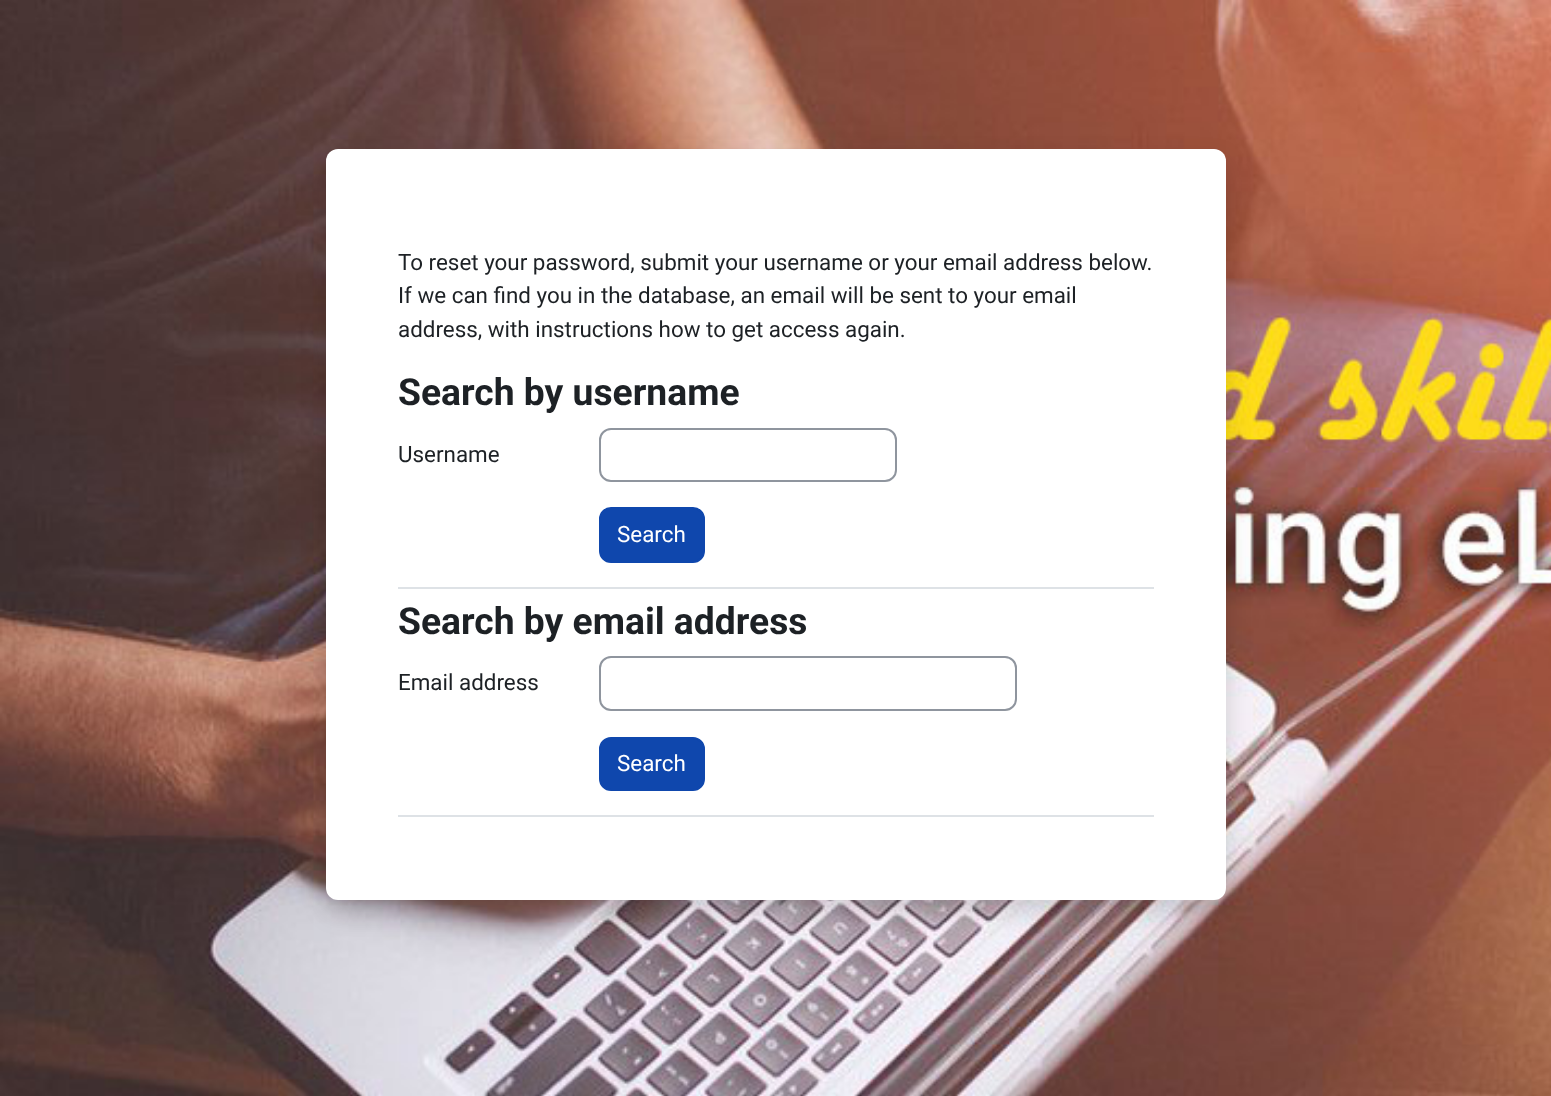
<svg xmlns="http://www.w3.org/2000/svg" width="1551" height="1096">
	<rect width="100%" height="100%" fill="#FFFFFF" />
	<image x="0" y="0" width="1551" height="1096" href="assets/img1.png" />
	<rect x="326" y="161" width="900" height="751" rx="12" fill="#000000" fill-opacity="0.15" filter="blur(12px)" />
	<rect x="326" y="149" width="900" height="751" rx="12" fill="#FFFFFF" />
	<g font-family="Roboto" font-size="22.4" fill="#1D2125">
		<text x="398" y="270">To reset your password, submit your username or your email address below.</text>
		<text x="398" y="303">If we can find you in the database, an email will be sent to your email</text>
		<text x="398" y="337">address, with instructions how to get access again.</text>
	</g>
	<rect x="398" y="587" width="756" height="2" fill="#DEE2E6" />
	<text x="398" y="405" font-family="Roboto" font-size="37.25" font-weight="700" fill="#1D2125">Search by username</text>
	<text x="398" y="462" font-family="Roboto" font-size="22.4" fill="#1D2125">Username</text>
	<rect x="600" y="429" width="296" height="52" rx="11" fill="none" stroke="#8F959E" stroke-width="2" />
	<rect x="600" y="508" width="104" height="54" rx="11" fill="#0F47AD" stroke="#0F47AD" stroke-width="2" />
	<text x="617" y="542" font-family="Roboto" font-size="22.4" fill="#FFFFFF">Search</text>
	<rect x="398" y="815" width="756" height="2" fill="#DEE2E6" />
	<text x="398" y="634" font-family="Roboto" font-size="37.25" font-weight="700" fill="#1D2125">Search by email address</text>
	<text x="398" y="690" font-family="Roboto" font-size="22.4" fill="#1D2125">Email address</text>
	<rect x="600" y="657" width="416" height="53" rx="11" fill="none" stroke="#8F959E" stroke-width="2" />
	<rect x="600" y="738" width="104" height="52" rx="11" fill="#0F47AD" stroke="#0F47AD" stroke-width="2" />
	<text x="617" y="771" font-family="Roboto" font-size="22.4" fill="#FFFFFF">Search</text>
</svg>
